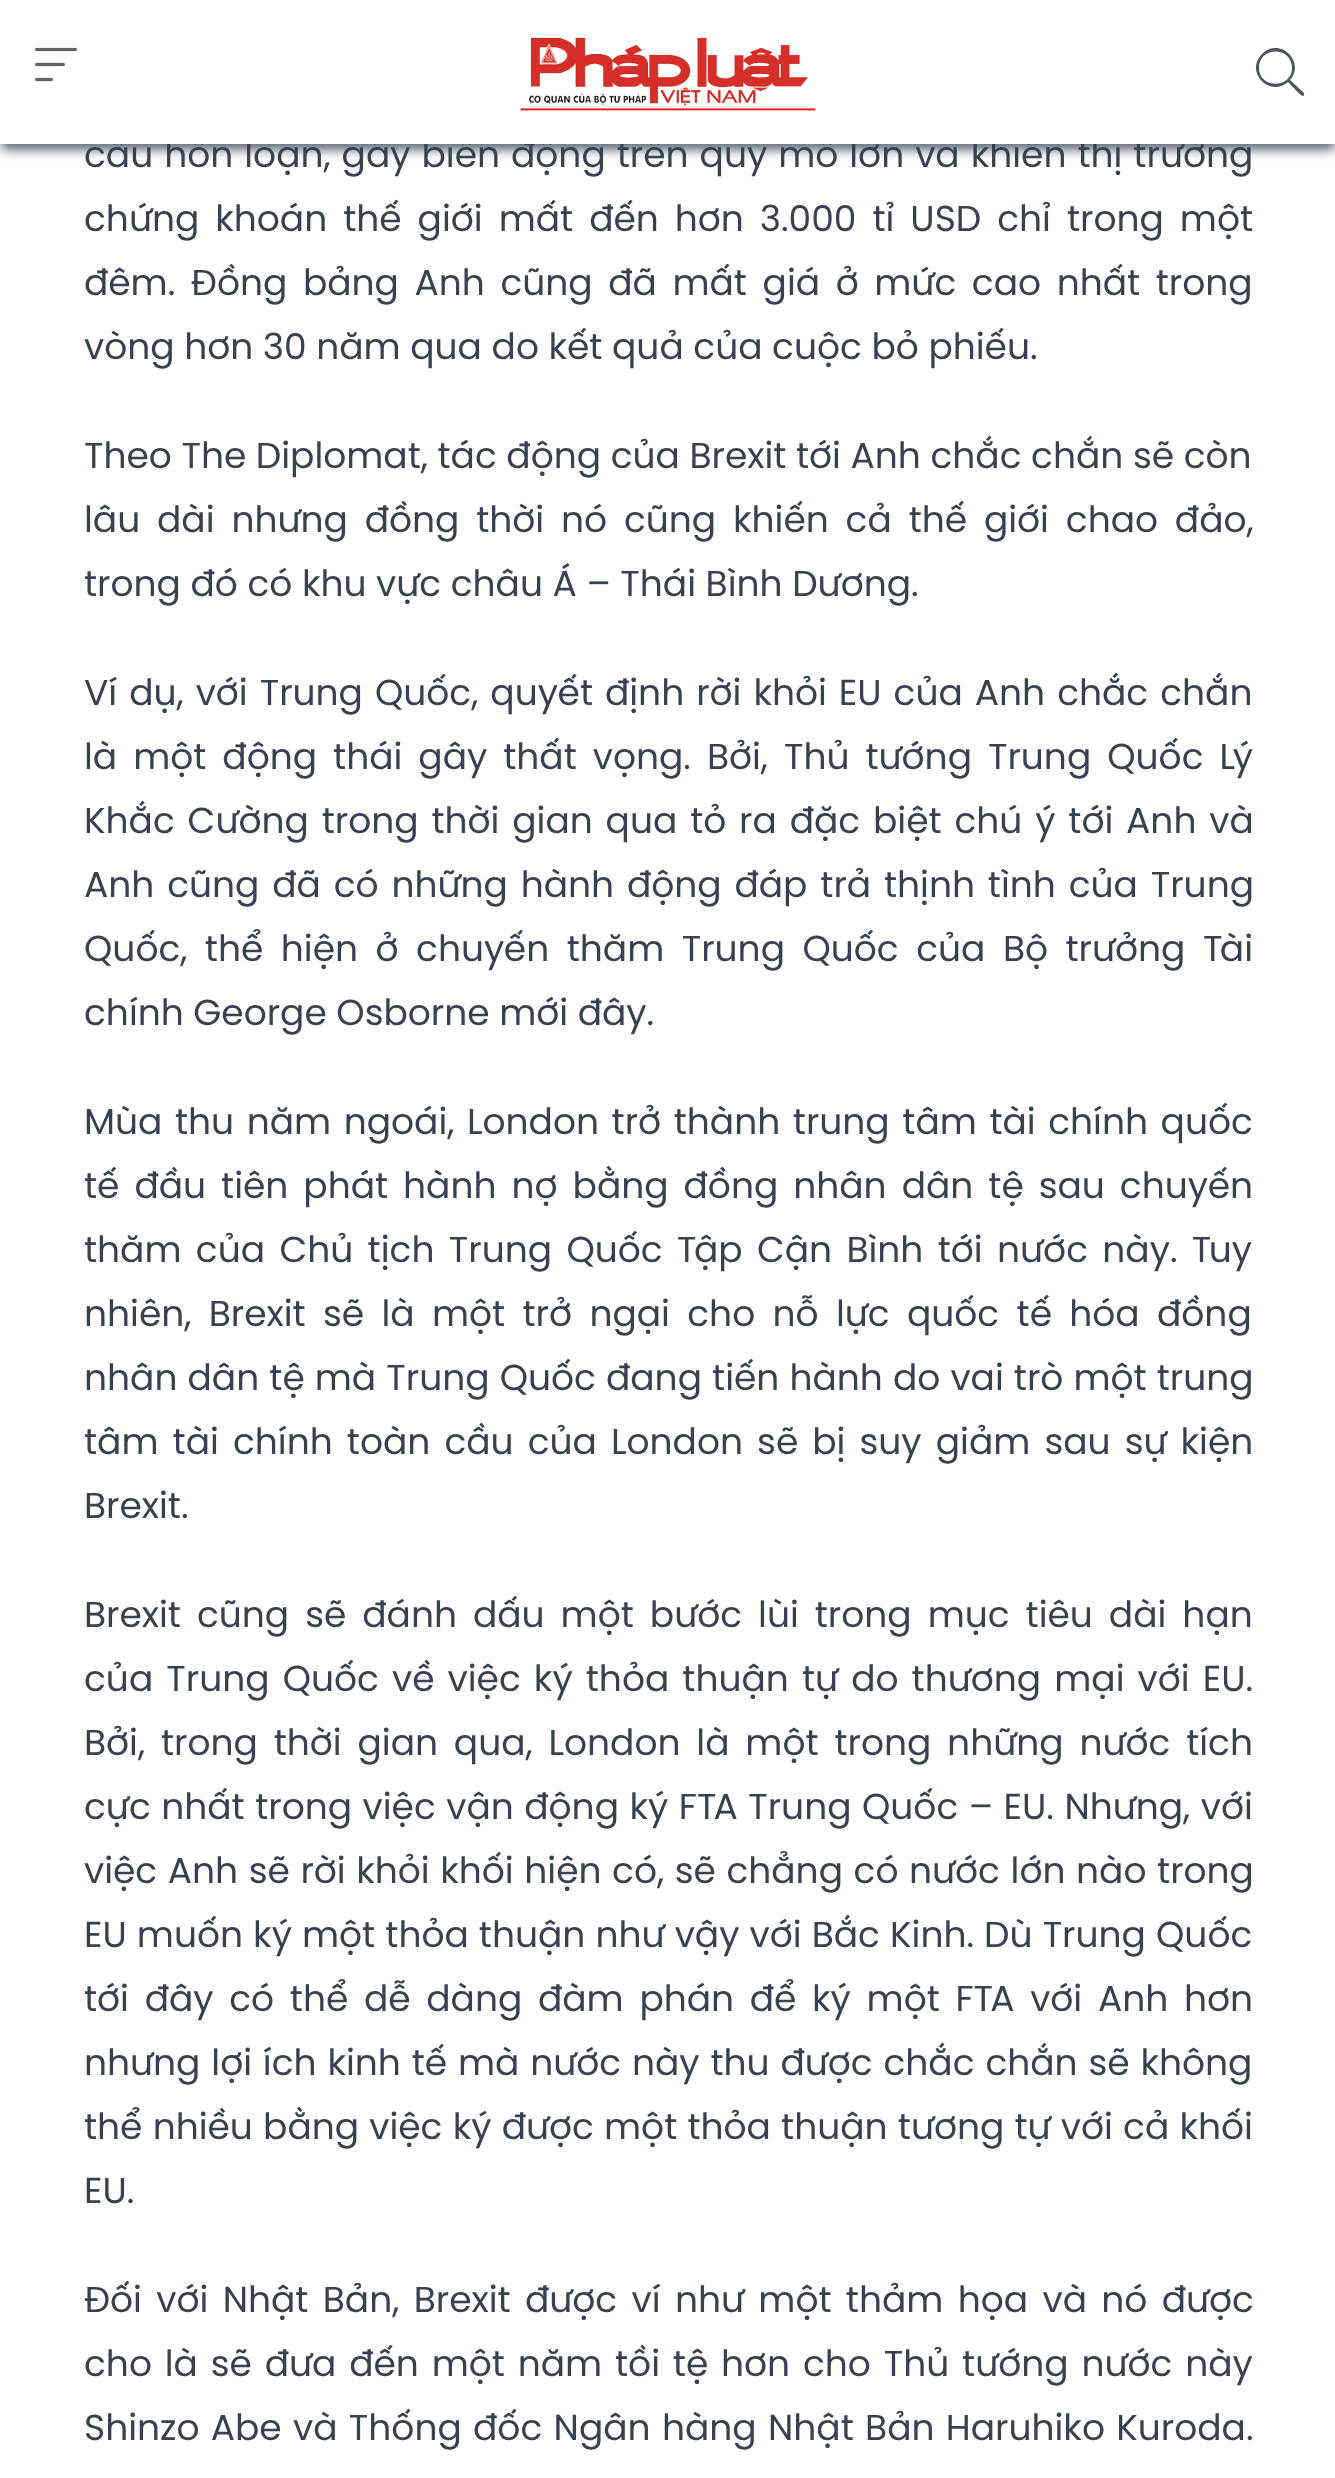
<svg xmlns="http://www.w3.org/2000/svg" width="1335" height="2478">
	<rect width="100%" height="100%" fill="#FFFFFF" />
	<rect x="4" y="8" width="1328" height="136" fill="#6B7280" filter="blur(4px)" />
	<rect x="2" y="10" width="1332" height="140" fill="#6B7280" filter="blur(6px)" />
	<text x="84" y="167" word-spacing="1.4" font-family="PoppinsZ" font-size="36" fill="#374151">cầu hỗn loạn, gây biến động trên quy mô lớn và khiến thị trường</text>
	<rect x="0" y="0" width="1335" height="144" fill="#FFFFFF" />
	<image x="35" y="47" width="42" height="35" href="assets/img1.png" />
	<image x="520" y="37" width="296" height="74" href="assets/img2.png" />
	<path d="M1292 68C1292 46 1259 46 1259 68C1259 89 1292 89 1292 68ZM1288 82C1270 98 1244 72 1262 54C1280 36 1306 62 1290 80L1304 93C1304 94 1304 96 1303 96C1301 96 1290 84 1288 82Z" fill="#4B5563" />
	<g font-family="PoppinsZ" font-size="36" fill="#374151">
		<text x="84" y="231" word-spacing="6.4">chứng khoán thế giới mất đến hơn 3.000 tỉ USD chỉ trong một</text>
		<text x="84" y="295" word-spacing="6">đêm. Đồng bảng Anh cũng đã mất giá ở mức cao nhất trong</text>
		<text x="84" y="359">vòng hơn 30 năm qua do kết quả của cuộc bỏ phiếu.</text>
		<text x="84" y="468">Theo The Diplomat, tác động của Brexit tới Anh chắc chắn sẽ còn</text>
		<text x="84" y="532" word-spacing="7.25">lâu dài nhưng đồng thời nó cũng khiến cả thế giới chao đảo,</text>
		<text x="84" y="596">trong đó có khu vực châu Á – Thái Bình Dương.</text>
		<text x="84" y="705" word-spacing="2.4">Ví dụ, với Trung Quốc, quyết định rời khỏi EU của Anh chắc chắn</text>
		<text x="84" y="769" word-spacing="6.4">là một động thái gây thất vọng. Bởi, Thủ tướng Trung Quốc Lý</text>
		<text x="84" y="833" word-spacing="3.25">Khắc Cường trong thời gian qua tỏ ra đặc biệt chú ý tới Anh và</text>
		<text x="84" y="897" word-spacing="3.25">Anh cũng đã có những hành động đáp trả thịnh tình của Trung</text>
		<text x="84" y="961" word-spacing="7.9">Quốc, thể hiện ở chuyến thăm Trung Quốc của Bộ trưởng Tài</text>
		<text x="84" y="1025">chính George Osborne mới đây.</text>
		<text x="84" y="1134" word-spacing="3">Mùa thu năm ngoái, London trở thành trung tâm tài chính quốc</text>
		<text x="84" y="1198" word-spacing="5.4">tế đầu tiên phát hành nợ bằng đồng nhân dân tệ sau chuyến</text>
		<text x="84" y="1262" word-spacing="4.75">thăm của Chủ tịch Trung Quốc Tập Cận Bình tới nước này. Tuy</text>
		<text x="84" y="1326" word-spacing="7.75">nhiên, Brexit sẽ là một trở ngại cho nỗ lực quốc tế hóa đồng</text>
		<text x="84" y="1390" word-spacing="0.5">nhân dân tệ mà Trung Quốc đang tiến hành do vai trò một trung</text>
		<text x="84" y="1454" word-spacing="4.5">tâm tài chính toàn cầu của London sẽ bị suy giảm sau sự kiện</text>
		<text x="84" y="1518">Brexit.</text>
		<text x="84" y="1627" word-spacing="6.4">Brexit cũng sẽ đánh dấu một bước lùi trong mục tiêu dài hạn</text>
		<text x="84" y="1691" word-spacing="3.5">của Trung Quốc về việc ký thỏa thuận tự do thương mại với EU.</text>
		<text x="84" y="1755" word-spacing="6.25">Bởi, trong thời gian qua, London là một trong những nước tích</text>
		<text x="84" y="1819" word-spacing="0.9">cực nhất trong việc vận động ký FTA Trung Quốc – EU. Nhưng, với</text>
		<text x="84" y="1883" word-spacing="1">việc Anh sẽ rời khỏi khối hiện có, sẽ chẳng có nước lớn nào trong</text>
		<text x="84" y="1947" word-spacing="0.5">EU muốn ký một thỏa thuận như vậy với Bắc Kinh. Dù Trung Quốc</text>
		<text x="84" y="2011" word-spacing="6.1">tới đây có thể dễ dàng đàm phán để ký một FTA với Anh hơn</text>
		<text x="84" y="2075" word-spacing="1.25">nhưng lợi ích kinh tế mà nước này thu được chắc chắn sẽ không</text>
		<text x="84" y="2139" word-spacing="0.6">thể nhiều bằng việc ký được một thỏa thuận tương tự với cả khối</text>
		<text x="84" y="2203">EU.</text>
		<text x="84" y="2312" word-spacing="4.75">Đối với Nhật Bản, Brexit được ví như một thảm họa và nó được</text>
		<text x="84" y="2376" word-spacing="3.25">cho là sẽ đưa đến một năm tồi tệ hơn cho Thủ tướng nước này</text>
		<text x="84" y="2440" word-spacing="1.75">Shinzo Abe và Thống đốc Ngân hàng Nhật Bản Haruhiko Kuroda.</text>
	</g>
</svg>
